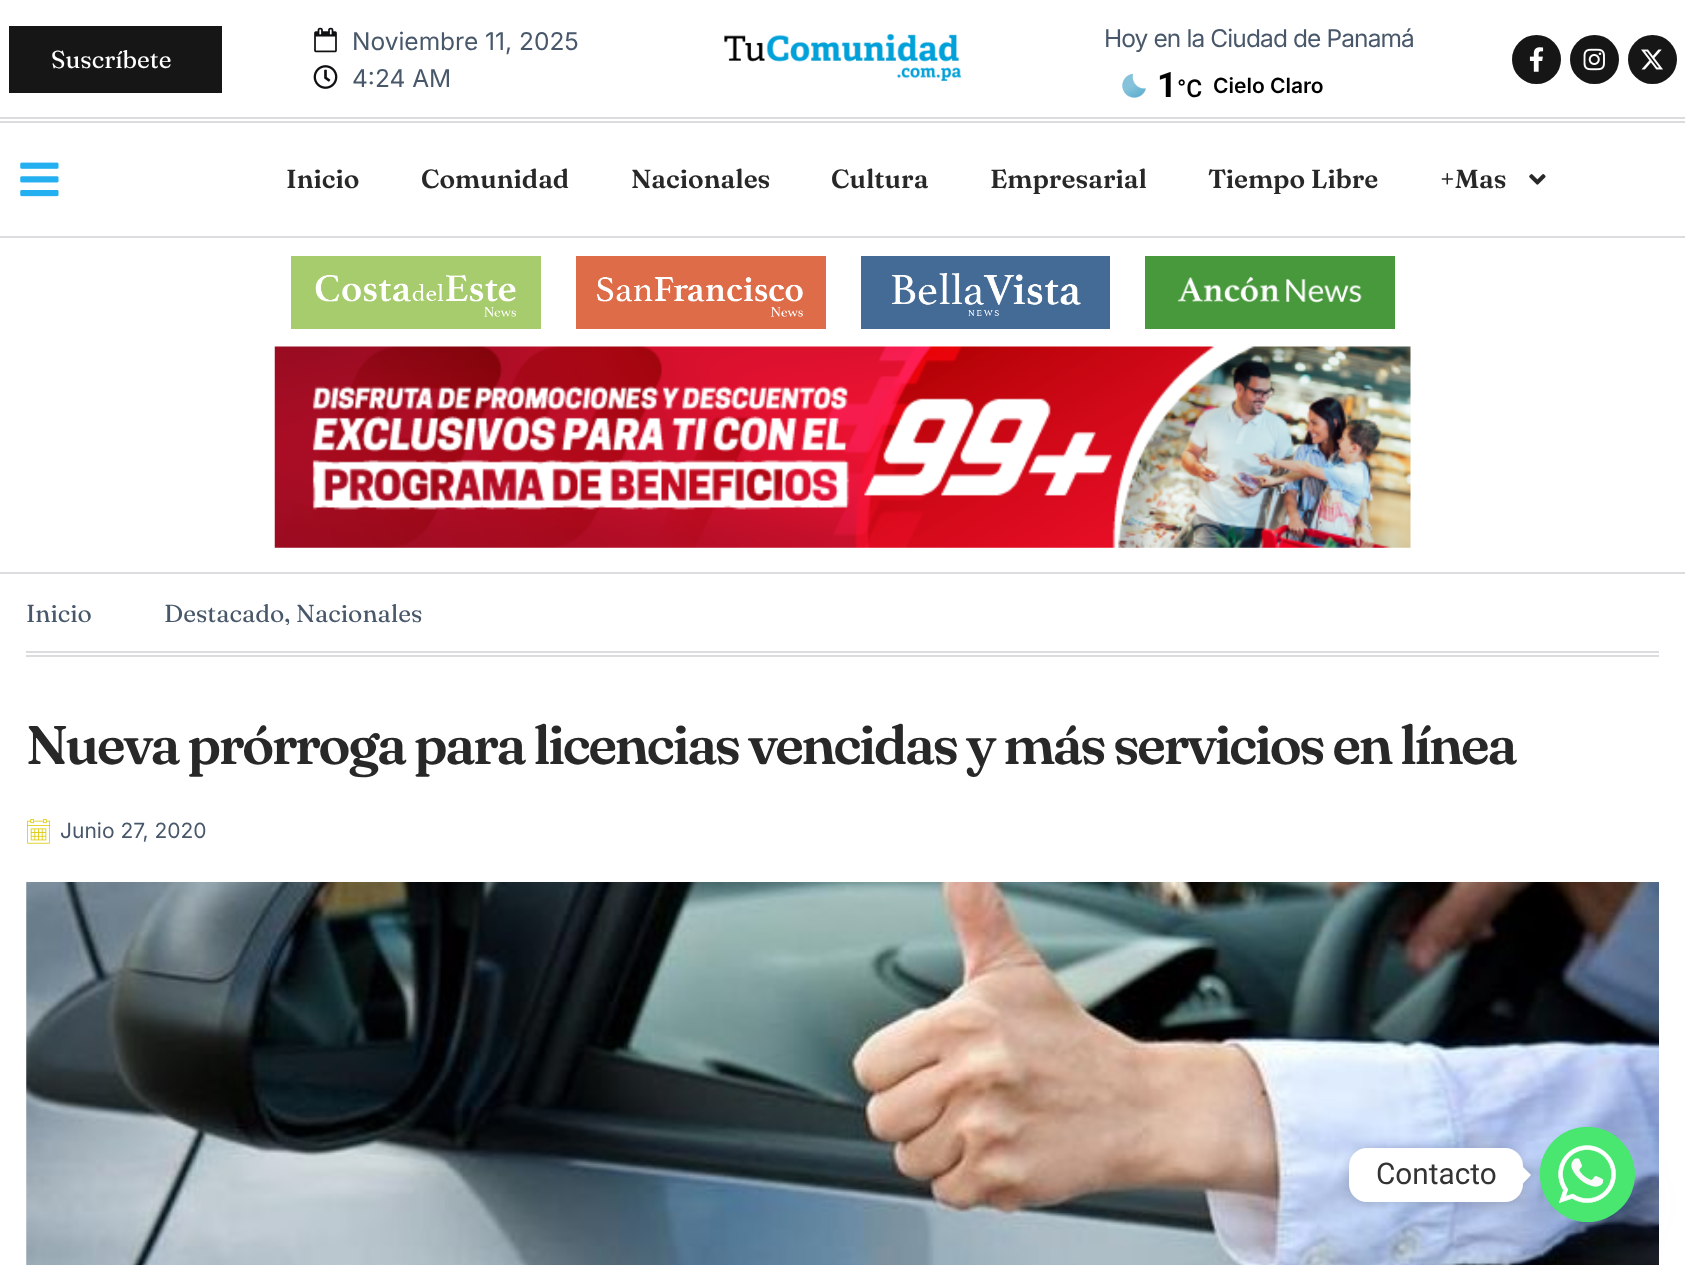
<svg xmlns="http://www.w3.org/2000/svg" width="1685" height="1265">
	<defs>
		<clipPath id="clip1"><rect x="26" y="600" width="1633" height="25" /></clipPath>
	</defs>
	<rect width="100%" height="100%" fill="#FFFFFF" />
	<rect x="0" y="117" width="1685" height="2" fill="#DCDCDE" />
	<rect x="0" y="121" width="1685" height="2" fill="#DCDCDE" />
	<rect x="9" y="26" width="213" height="67" fill="#161616" />
	<text x="51" y="68" font-family="Fraunces" font-size="24.5" fill="#FFFFFF">Suscríbete</text>
	<image x="314" y="27" width="23" height="26" href="assets/img1.png" />
	<text x="352" y="50" font-family="Inter" font-size="24.5" fill="#48586A">Noviembre 11, 2025</text>
	<image x="313" y="65" width="25" height="24" href="assets/img2.png" />
	<text x="352" y="87" font-family="Inter" font-size="24.5" fill="#48586A">4:24 AM</text>
	<image x="724" y="34" width="237" height="47" href="assets/img3.png" />
	<text x="1104" y="47" font-family="Inter" font-size="24.5" letter-spacing="-0.9" fill="#48586A">Hoy en la Ciudad de Panamá</text>
	<image x="1122" y="73" width="24" height="25" href="assets/img4.png" />
	<text x="1157" y="97" font-family="Roboto" font-size="35" font-weight="700" fill="#000000">1</text>
	<text x="1177" y="97" font-family="Roboto" font-size="24.5" font-weight="500" fill="#000000">°C</text>
	<text x="1213" y="93" font-family="Inter" font-size="21" font-weight="600" fill="#000000">Cielo Claro</text>
	<circle cx="1536.5" cy="59.5" r="24.5" fill="#161616" />
	<image x="1529" y="47" width="15" height="25" href="assets/img5.png" />
	<circle cx="1594.5" cy="59.5" r="24.5" fill="#161616" />
	<image x="1583" y="48" width="22" height="23" href="assets/img6.png" />
	<circle cx="1652.5" cy="59.5" r="24.5" fill="#161616" />
	<image x="1641" y="49" width="22" height="21" href="assets/img7.png" />
	<rect x="0" y="236" width="1685" height="2" fill="#DCDCDE" />
	<image x="20" y="162" width="39" height="35" href="assets/img8.png" />
	<g font-family="Fraunces" font-size="26.25" font-weight="600" fill="#282828">
		<text x="286" y="188">Inicio</text>
		<text x="421" y="188">Comunidad</text>
		<text x="631" y="188">Nacionales</text>
		<text x="831" y="188">Cultura</text>
		<text x="990" y="188">Empresarial</text>
		<text x="1208" y="188">Tiempo Libre</text>
		<text x="1440" y="188">+Mas</text>
	</g>
	<image x="1529" y="174" width="17" height="11" href="assets/img9.png" />
	<rect x="291" y="256" width="250" height="73" fill="#A7CC6D" />
	<image x="315" y="275" width="201" height="42" href="assets/img10.png" />
	<rect x="576" y="256" width="250" height="73" fill="#DF6C48" />
	<image x="596" y="277" width="207" height="40" href="assets/img11.png" />
	<rect x="861" y="256" width="249" height="73" fill="#446A96" />
	<image x="891" y="273" width="190" height="43" href="assets/img12.png" />
	<rect x="1145" y="256" width="250" height="73" fill="#48993C" />
	<image x="1177" y="277" width="185" height="26" href="assets/img13.png" />
	<rect x="0" y="572" width="1685" height="2" fill="#DCDCDE" />
	<image x="274" y="346" width="1137" height="202" href="assets/img14.png" />
	<rect x="26" y="651" width="1633" height="2" fill="#DCDCDE" />
	<rect x="26" y="655" width="1633" height="2" fill="#DCDCDE" />
	<g font-family="Fraunces" font-size="24.5" fill="#48586A">
		<text x="26" y="622">Inicio</text>
		<text x="164" y="622">Destacado</text>
	</g>
	<g clip-path="url(#clip1)">
		<text x="284" y="622" font-family="Fraunces" font-size="24.5" fill="#48586A">,</text>
	</g>
	<text x="296" y="622" font-family="Fraunces" font-size="24.5" fill="#48586A">Nacionales</text>
	<text x="26" y="764" font-family="Fraunces" font-size="54.25" font-weight="600" letter-spacing="-2.62" fill="#282828">Nueva prórroga para licencias vencidas y más servicios en línea</text>
	<image x="27" y="819" width="23" height="25" href="assets/img15.png" />
	<text x="60" y="838" font-family="Inter" font-size="21" fill="#48586A">Junio 27, 2020</text>
	<image x="26" y="882" width="1633" height="383" href="assets/img16.png" />
	<rect x="1540" y="1155" width="95" height="95" rx="47.5" fill="#49687E" fill-opacity="0.16" filter="blur(21px)" />
	<circle cx="1587.5" cy="1174.5" r="47.5" fill="#49E670" />
	<image x="1540" y="1127" width="81" height="81" href="assets/img17.png" />
	<rect x="1349" y="1150" width="174" height="54" rx="18" fill="#000000" fill-opacity="0.15" filter="blur(7px)" />
	<rect x="1349" y="1148" width="174" height="54" rx="18" fill="#FFFFFF" />
	<text x="1376" y="1184" font-family="Roboto" font-size="29.75" fill="#333333">Contacto</text>
	<path d="M1522.5 1184V1166.5L1531 1175Z" fill="#FFFFFF" />
</svg>
